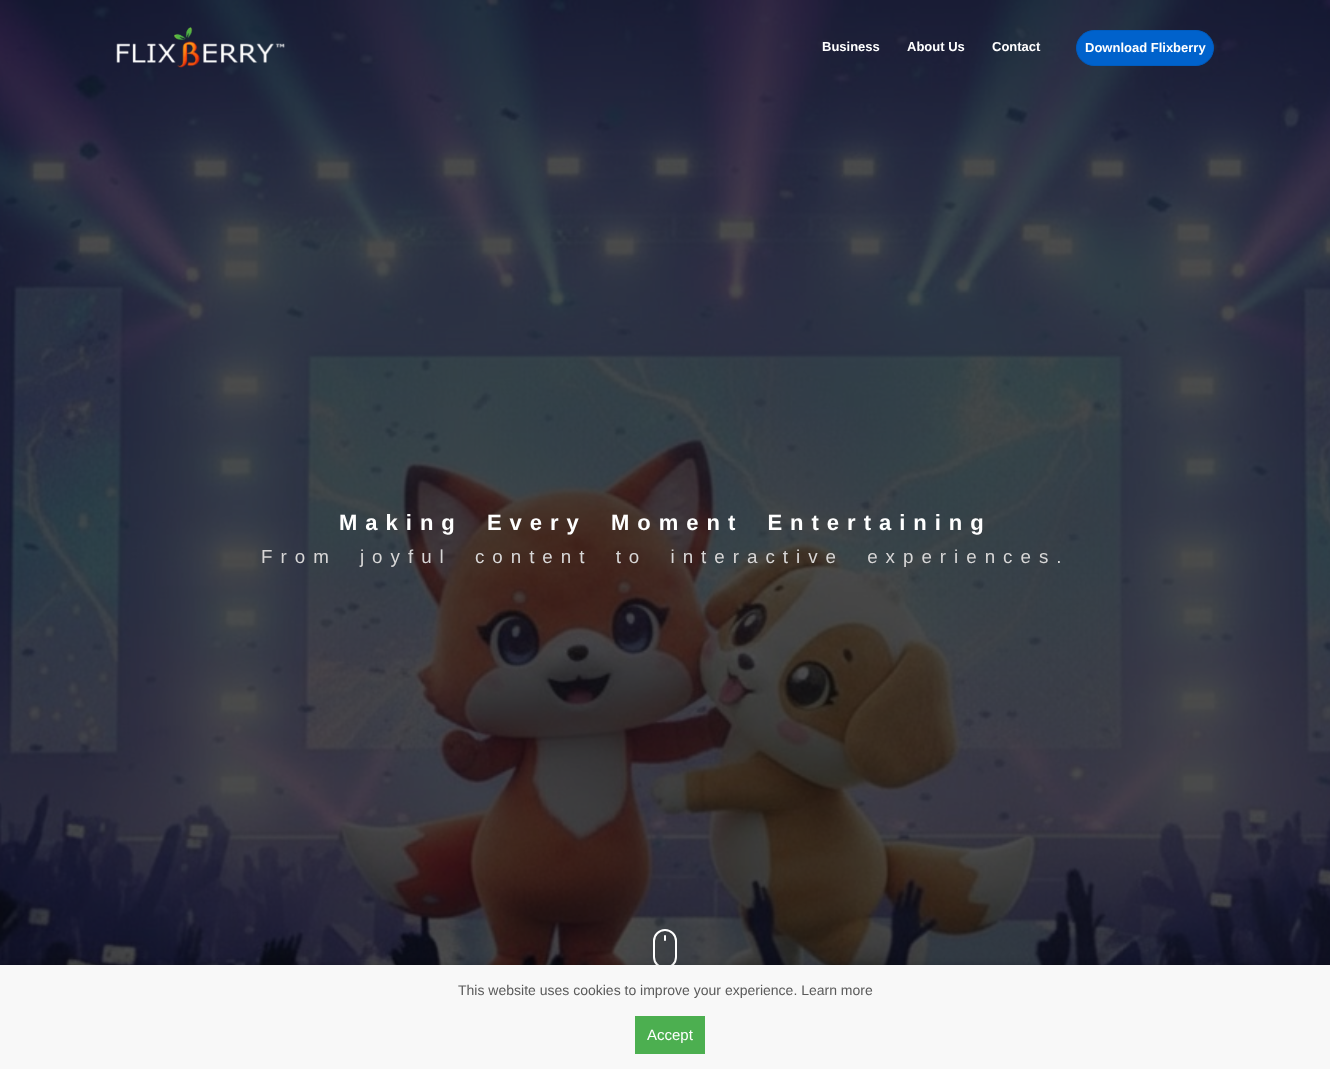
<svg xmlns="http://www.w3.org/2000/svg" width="1330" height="1069">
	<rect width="100%" height="100%" fill="#FFFFFF" />
	<image x="0" y="0" width="1330" height="965" href="assets/img2.png" />
	<image x="116" y="27" width="169" height="41" href="assets/img1.png" />
	<g font-family="Liberation Sans" font-size="13" font-weight="700" fill="#FFFFFF">
		<text x="822" y="51">Business</text>
		<text x="907" y="51">About Us</text>
		<text x="992" y="51">Contact</text>
	</g>
	<rect x="1076.5" y="30.5" width="137" height="35" rx="17.5" fill="#0062CC" stroke="#005CBF" />
	<text x="1085" y="52" font-family="Liberation Sans" font-size="13" font-weight="700" fill="#FFFFFF">Download Flixberry</text>
	<text x="339" y="530" word-spacing="10" font-family="Liberation Sans" font-size="22" font-weight="700" letter-spacing="8" fill="#FFFFFF">Making Every Moment Entertaining</text>
	<text x="261" y="563" word-spacing="10" font-family="Liberation Sans" font-size="18.75" letter-spacing="8" fill="#D8D7D7">From joyful content to interactive experiences.</text>
	<rect x="654" y="930" width="22" height="38" rx="11" fill="none" stroke="#FFFFFF" stroke-width="2" />
	<rect x="664" y="935" width="2" height="6" rx="1" fill="#FFFFFF" />
	<rect x="0" y="963" width="1330" height="104" fill="#000000" fill-opacity="0.1" filter="blur(2.5px)" />
	<rect x="0" y="965" width="1330" height="104" fill="#F8F8F8" />
	<text x="458" y="995" font-family="Liberation Sans" font-size="14" fill="#5A5A5A">This website uses cookies to improve your experience. Learn more</text>
	<rect x="635" y="1016" width="70" height="38" fill="#4CAF50" />
	<text x="647" y="1040" font-family="Liberation Sans" font-size="15" fill="#FFFFFF">Accept</text>
</svg>
